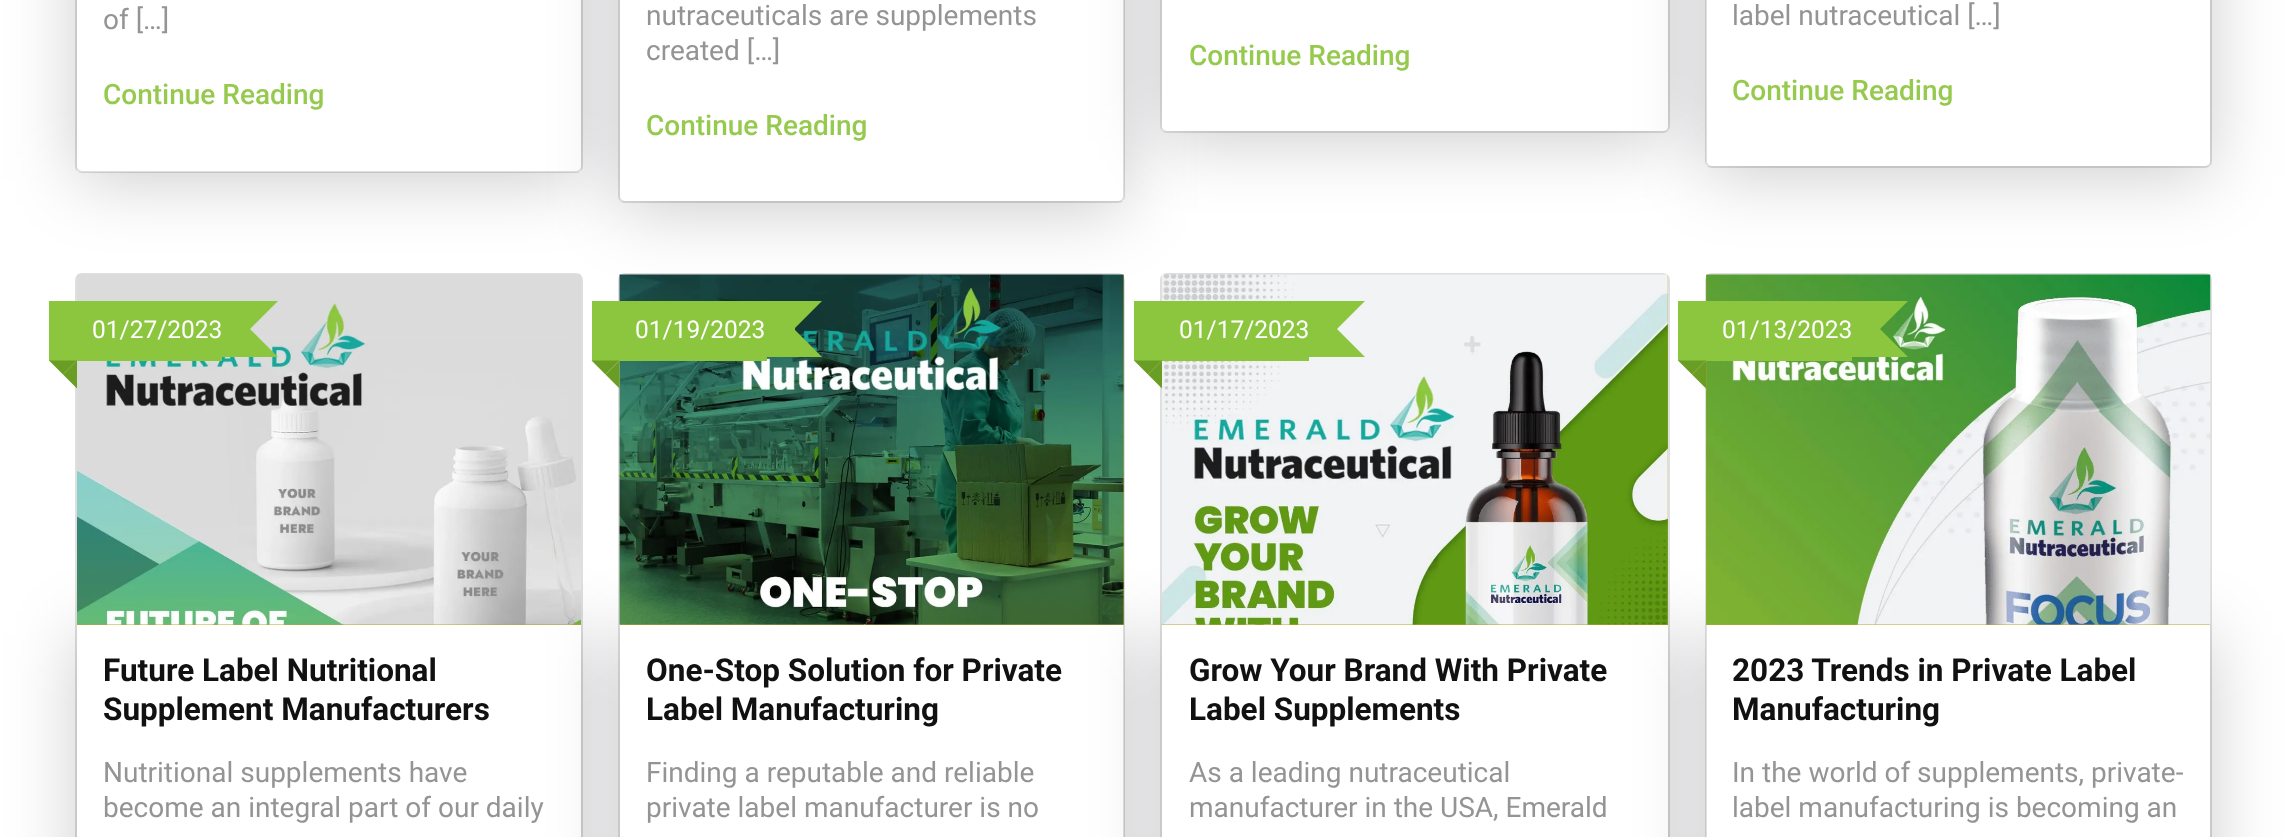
<svg xmlns="http://www.w3.org/2000/svg" width="2287" height="837">
	<defs>
		<clipPath id="clip1"><path d="M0 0H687V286H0ZM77-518H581V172H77Z" clip-rule="evenodd" /></clipPath>
		<clipPath id="clip2"><path d="M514 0H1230V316H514ZM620-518H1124V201H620Z" clip-rule="evenodd" /></clipPath>
		<clipPath id="clip3"><path d="M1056 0H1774V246H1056ZM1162-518H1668V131H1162Z" clip-rule="evenodd" /></clipPath>
		<clipPath id="clip4"><path d="M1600 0H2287V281H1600ZM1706-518H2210V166H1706Z" clip-rule="evenodd" /></clipPath>
		<clipPath id="clip5"><path d="M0 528H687V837H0ZM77 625H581V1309H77Z" clip-rule="evenodd" /></clipPath>
		<clipPath id="clip6"><path d="M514 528H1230V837H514ZM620 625H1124V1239H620Z" clip-rule="evenodd" /></clipPath>
		<clipPath id="clip7"><path d="M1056 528H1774V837H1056ZM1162 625H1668V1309H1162Z" clip-rule="evenodd" /></clipPath>
		<clipPath id="clip8"><path d="M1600 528H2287V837H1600ZM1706 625H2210V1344H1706Z" clip-rule="evenodd" /></clipPath>
	</defs>
	<rect width="100%" height="100%" fill="#FFFFFF" />
	<rect x="76" y="-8" width="506" height="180" rx="6" fill="none" stroke="#DFDFDF" stroke-width="2" />
	<g clip-path="url(#clip1)">
		<rect x="77" y="-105" width="504" height="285" fill="#00000A" fill-opacity="0.2" filter="blur(35px)" />
	</g>
	<text x="103" y="29" font-family="Roboto" font-size="28" fill="#949494">of […]</text>
	<text x="103" y="104" font-family="Roboto" font-size="28" font-weight="500" fill="#96CA4E">Continue Reading</text>
	<rect x="619" y="-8" width="505" height="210" rx="6" fill="#FFFFFF" stroke="#DFDFDF" stroke-width="2" />
	<g clip-path="url(#clip2)">
		<rect x="620" y="-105" width="504" height="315" fill="#00000A" fill-opacity="0.2" filter="blur(35px)" />
	</g>
	<g font-family="Roboto" font-size="28" fill="#949494">
		<text x="646" y="25">nutraceuticals are supplements</text>
		<text x="646" y="60">created […]</text>
	</g>
	<text x="646" y="135" font-family="Roboto" font-size="28" font-weight="500" fill="#96CA4E">Continue Reading</text>
	<rect x="1160" y="-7" width="510" height="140" rx="7" fill="#FFFFFF" />
	<rect x="1161" y="-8" width="508" height="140" rx="6" fill="none" stroke="#000000" stroke-opacity="0.12" stroke-width="2" />
	<g clip-path="url(#clip3)">
		<rect x="1162" y="-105" width="506" height="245" fill="#00000A" fill-opacity="0.2" filter="blur(35px)" />
	</g>
	<text x="1189" y="65" font-family="Roboto" font-size="28" font-weight="500" fill="#96CA4E">Continue Reading</text>
	<rect x="1706" y="-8" width="505" height="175" rx="6" fill="#FFFFFF" stroke="#DFDFDF" stroke-width="2" />
	<g clip-path="url(#clip4)">
		<rect x="1706" y="-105" width="504" height="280" fill="#00000A" fill-opacity="0.2" filter="blur(35px)" />
	</g>
	<text x="1732" y="25" font-family="Roboto" font-size="28" fill="#949494">label nutraceutical […]</text>
	<text x="1732" y="100" font-family="Roboto" font-size="28" font-weight="500" fill="#96CA4E">Continue Reading</text>
	<rect x="76" y="274" width="506" height="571" rx="6" fill="none" stroke="#DFDFDF" stroke-width="2" />
	<g clip-path="url(#clip5)">
		<rect x="77" y="634" width="504" height="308" fill="#00000A" fill-opacity="0.2" filter="blur(35px)" />
	</g>
	<rect x="619" y="274" width="505" height="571" rx="6" fill="#FFFFFF" stroke="#DFDFDF" stroke-width="2" />
	<g clip-path="url(#clip6)">
		<rect x="620" y="634" width="504" height="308" fill="#00000A" fill-opacity="0.2" filter="blur(35px)" />
	</g>
	<rect x="77" y="624" width="504" height="1" fill="#BDA531" />
	<image x="77" y="274" width="504" height="351" href="assets/img1.png" />
	<rect x="49" y="301" width="173" height="60" fill="#8CC63F" />
	<text x="92" y="338" font-family="Roboto" font-size="24.5" fill="#FFFFFF">01/27/2023</text>
	<path d="M222 301H278L250 329ZM278 357H222L250 329Z" fill="#8CC63F" />
	<rect x="222" y="301" width="28" height="56" fill="#8CC63F" />
	<path d="M49 360.5H77L63 374.5Z" fill="#699D24" />
	<path d="M77 360.5V388.5L63 374.5Z" fill="#699D24" />
	<g font-family="Roboto" font-size="31.5" font-weight="700" fill="#111111">
		<text x="103" y="681">Future Label Nutritional</text>
		<text x="103" y="720">Supplement Manufacturers</text>
	</g>
	<g font-family="Roboto" font-size="28" fill="#949494">
		<text x="103" y="782">Nutritional supplements have</text>
		<text x="103" y="817">become an integral part of our daily</text>
	</g>
	<rect x="1161" y="274" width="508" height="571" rx="6" fill="#FFFFFF" stroke="#DFDFDF" stroke-width="2" />
	<g clip-path="url(#clip7)">
		<rect x="1162" y="634" width="506" height="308" fill="#00000A" fill-opacity="0.2" filter="blur(35px)" />
	</g>
	<rect x="620" y="275" width="504" height="350" fill="#BDA531" />
	<image x="619" y="274" width="505" height="351" href="assets/img2.png" />
	<rect x="592" y="301" width="175" height="60" fill="#8CC63F" />
	<text x="635" y="338" font-family="Roboto" font-size="24.5" fill="#FFFFFF">01/19/2023</text>
	<path d="M766 301H822L794 329ZM822 357H766L794 329Z" fill="#8CC63F" />
	<rect x="767" y="302" width="28" height="54" fill="#8CC63F" />
	<path d="M591.5 360.5H619.5L605.5 374.5Z" fill="#699D24" />
	<path d="M619.5 360.5V388.5L605.5 374.5Z" fill="#699D24" />
	<g font-family="Roboto" font-size="31.5" font-weight="700" fill="#111111">
		<text x="646" y="681">One-Stop Solution for Private</text>
		<text x="646" y="720">Label Manufacturing</text>
	</g>
	<g font-family="Roboto" font-size="28" fill="#949494">
		<text x="646" y="782">Finding a reputable and reliable</text>
		<text x="646" y="817">private label manufacturer is no</text>
	</g>
	<rect x="1706" y="274" width="505" height="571" rx="6" fill="#FFFFFF" stroke="#DFDFDF" stroke-width="2" />
	<g clip-path="url(#clip8)">
		<rect x="1706" y="634" width="504" height="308" fill="#00000A" fill-opacity="0.2" filter="blur(35px)" />
	</g>
	<rect x="1162" y="275" width="506" height="350" fill="#BDA531" />
	<image x="1162" y="274" width="506" height="351" href="assets/img3.png" />
	<rect x="1134" y="301" width="175" height="60" fill="#8CC63F" />
	<text x="1179" y="338" font-family="Roboto" font-size="24.5" fill="#FFFFFF">01/17/2023</text>
	<path d="M1309 301H1365L1337 329ZM1365 357H1309L1337 329Z" fill="#8CC63F" />
	<rect x="1309" y="301" width="28" height="56" fill="#8CC63F" />
	<path d="M1134 360.5H1162L1148 374.5Z" fill="#699D24" />
	<path d="M1162 360.5V388.5L1148 374.5Z" fill="#699D24" />
	<g font-family="Roboto" font-size="31.5" font-weight="700" fill="#111111">
		<text x="1189" y="681">Grow Your Brand With Private</text>
		<text x="1189" y="720">Label Supplements</text>
	</g>
	<g font-family="Roboto" font-size="28" fill="#949494">
		<text x="1189" y="782">As a leading nutraceutical</text>
		<text x="1189" y="817">manufacturer in the USA, Emerald</text>
	</g>
	<rect x="1706" y="275" width="504" height="350" fill="#BDA531" />
	<image x="1706" y="274" width="505" height="351" href="assets/img4.png" />
	<rect x="1678" y="301" width="174" height="60" fill="#8CC63F" />
	<text x="1722" y="338" font-family="Roboto" font-size="24.5" fill="#FFFFFF">01/13/2023</text>
	<path d="M1852 301H1908L1880 329ZM1908 357H1852L1880 329Z" fill="#8CC63F" />
	<rect x="1852" y="301" width="28" height="56" fill="#8CC63F" />
	<path d="M1678 360.5H1706L1692 374.5Z" fill="#699D24" />
	<path d="M1706 360.5V388.5L1692 374.5Z" fill="#699D24" />
	<g font-family="Roboto" font-size="31.5" font-weight="700" fill="#111111">
		<text x="1732" y="681">2023 Trends in Private Label</text>
		<text x="1732" y="720">Manufacturing</text>
	</g>
	<g font-family="Roboto" font-size="28" fill="#949494">
		<text x="1732" y="782">In the world of supplements, private-</text>
		<text x="1732" y="817">label manufacturing is becoming an</text>
	</g>
</svg>
